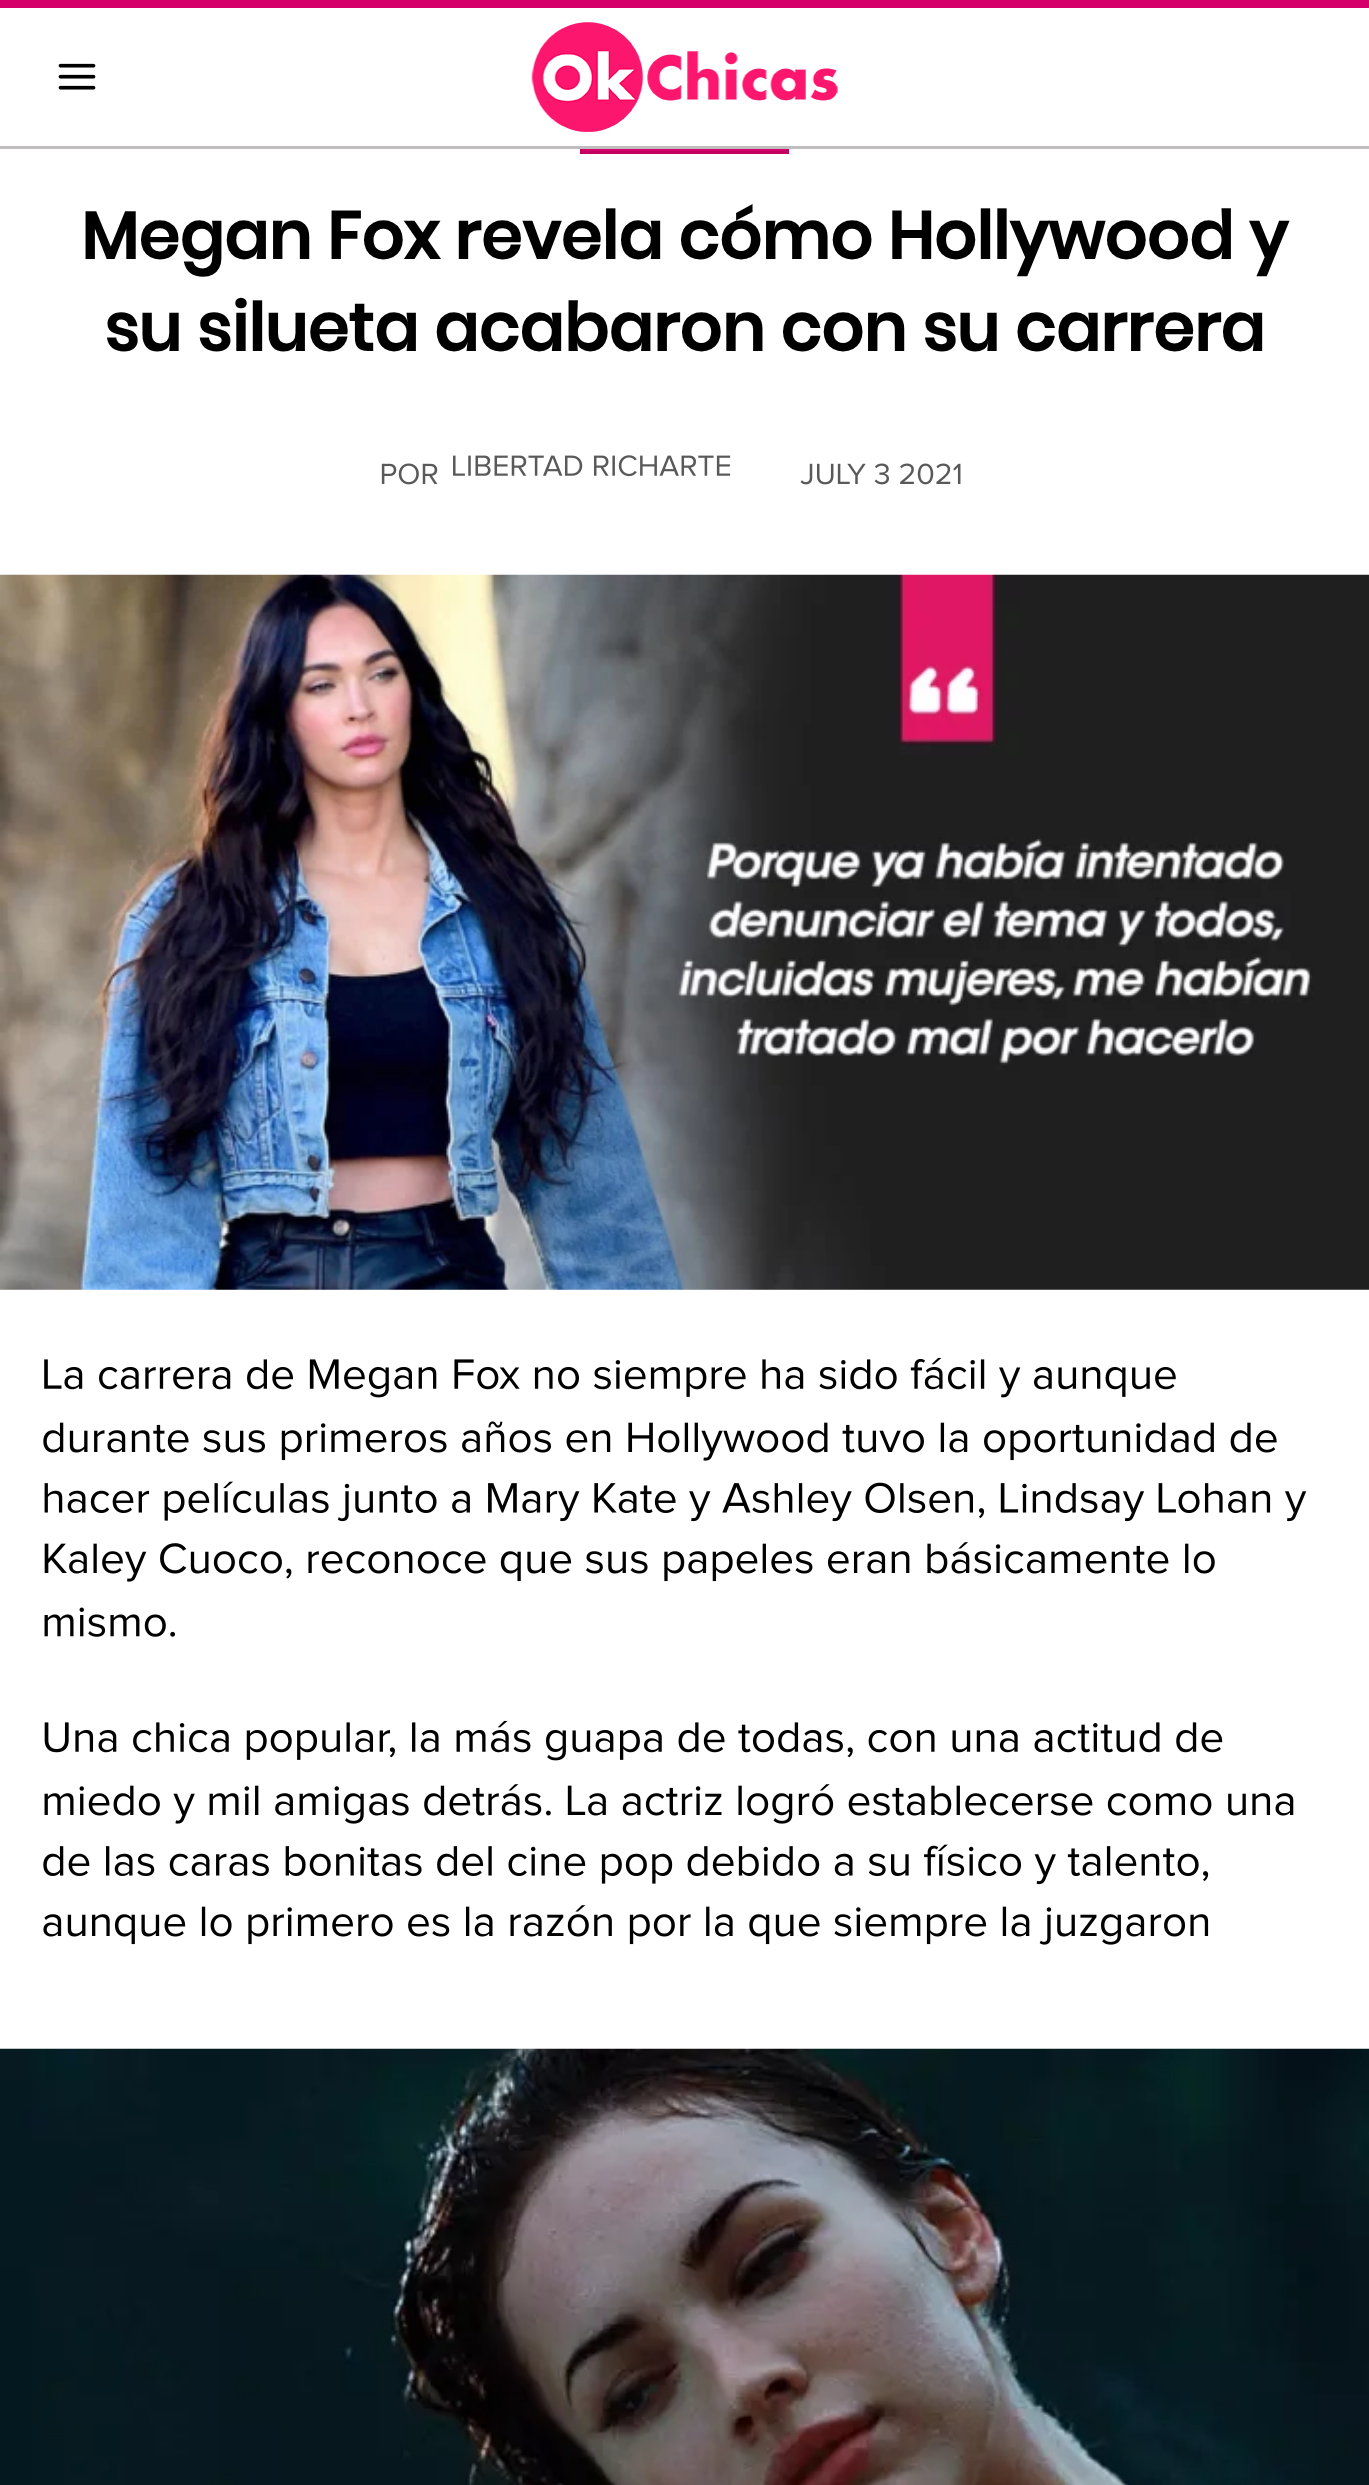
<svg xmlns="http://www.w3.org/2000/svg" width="1369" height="2485">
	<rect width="100%" height="100%" fill="#FFFFFF" />
	<rect x="583" y="149" width="203" height="2" fill="#D6006B" />
	<rect x="581.5" y="92.5" width="206" height="60" fill="none" stroke="#C30061" stroke-width="3" />
	<rect x="580" y="91" width="209" height="55" fill="#FFFFFF" />
	<rect x="0" y="0" width="1369" height="8" fill="#D6006B" />
	<rect x="0" y="146" width="1369" height="3" fill="#BFBDBD" />
	<image x="58" y="63" width="38" height="27" href="assets/img1.png" />
	<image x="531" y="22" width="307" height="110" href="assets/img2.png" />
	<g font-family="Poppins" font-size="66" font-weight="700" fill="#000000">
		<text x="81" y="259">Megan Fox revela cómo Hollywood y</text>
		<text x="104" y="351">su silueta acabaron con su carrera</text>
	</g>
	<image x="381" y="463" width="57" height="22" href="assets/img3.png" />
	<image x="453" y="455" width="278" height="22" href="assets/img4.png" />
	<image x="800" y="463" width="161" height="22" href="assets/img5.png" />
	<image x="0" y="574" width="1369" height="716" href="assets/img6.png" />
	<image x="44" y="1357" width="1132" height="41" href="assets/img7.png" />
	<image x="43" y="1421" width="1234" height="40" href="assets/img8.png" />
	<image x="44" y="1481" width="1263" height="41" href="assets/img9.png" />
	<image x="44" y="1542" width="1171" height="40" href="assets/img10.png" />
	<image x="44" y="1607" width="131" height="30" href="assets/img11.png" />
	<image x="44" y="1720" width="1179" height="41" href="assets/img12.png" />
	<image x="44" y="1784" width="1250" height="40" href="assets/img13.png" />
	<image x="43" y="1844" width="1166" height="41" href="assets/img14.png" />
	<image x="43" y="1905" width="1166" height="40" href="assets/img15.png" />
	<image x="0" y="2048" width="1369" height="437" href="assets/img16.png" />
</svg>
